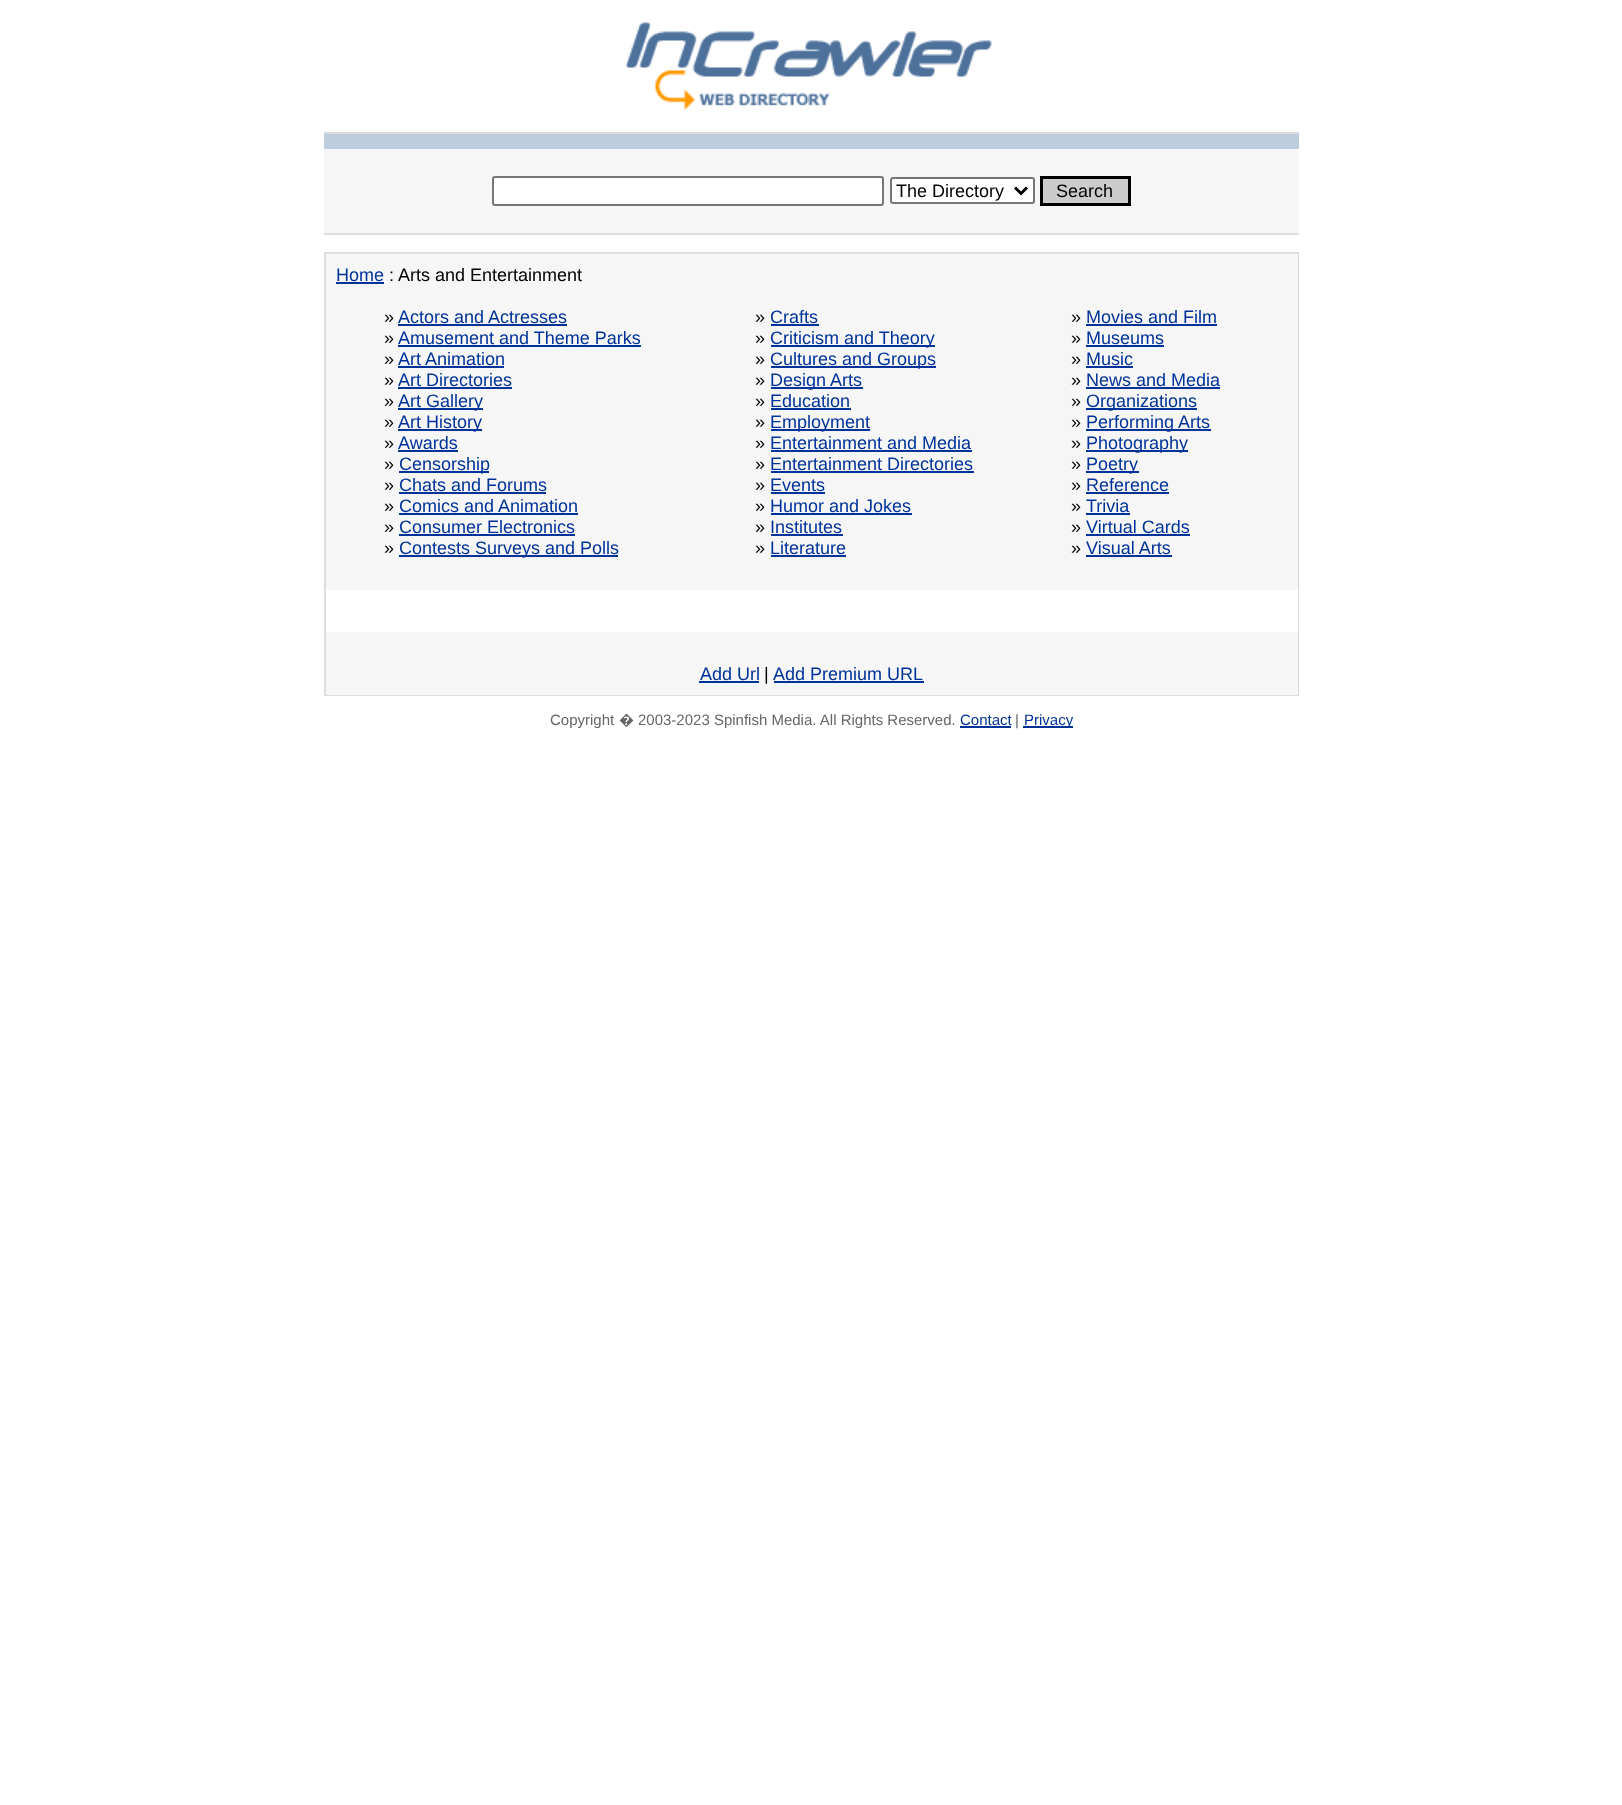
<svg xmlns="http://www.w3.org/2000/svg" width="1622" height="1805">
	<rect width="100%" height="100%" fill="#FFFFFF" />
	<image x="625" y="22" width="367" height="88" href="assets/img1.png" />
	<rect x="324" y="132" width="975" height="2" fill="#DDDDDD" />
	<rect x="324" y="134" width="975" height="15" fill="#BECDDE" />
	<rect x="324" y="149" width="975" height="84" fill="#F6F6F6" />
	<rect x="493" y="177" width="390" height="28" rx="2" fill="#FFFFFF" stroke="#767676" stroke-width="2" />
	<rect x="891" y="178" width="143" height="25" rx="2" fill="#FFFFFF" stroke="#767676" stroke-width="2" />
	<path d="M1015 187.5L1021 193.5L1027 187.5" fill="none" stroke="#000000" stroke-width="3" />
	<text x="896" y="197" font-family="Liberation Sans" font-size="18" fill="#000000">The Directory</text>
	<rect x="1041.5" y="177.5" width="88" height="27" fill="#CCCCCC" stroke="#000000" stroke-width="3" />
	<text x="1056" y="197" font-family="Liberation Sans" font-size="18" fill="#000000">Search</text>
	<rect x="324" y="233" width="975" height="2" fill="#DDDDDD" />
	<rect x="324" y="252" width="975" height="444" fill="#DDDDDD" />
	<rect x="326" y="254" width="972" height="441" fill="#F6F6F6" />
	<text x="336" y="281" font-family="Liberation Sans" font-size="18" fill="#003399">Home</text>
	<rect x="336" y="282" width="48" height="2" fill="#003399" />
	<g font-family="Liberation Sans" font-size="18" fill="#000000">
		<text x="389" y="281">:</text>
		<text x="398" y="281">Arts and Entertainment</text>
		<text x="384" y="323">»</text>
	</g>
	<text x="398" y="323" font-family="Liberation Sans" font-size="18" fill="#003399">Actors and Actresses</text>
	<rect x="398" y="324" width="169" height="2" fill="#003399" />
	<text x="384" y="344" font-family="Liberation Sans" font-size="18" fill="#000000">»</text>
	<text x="398" y="344" font-family="Liberation Sans" font-size="18" fill="#003399">Amusement and Theme Parks</text>
	<rect x="398" y="345" width="243" height="2" fill="#003399" />
	<text x="384" y="365" font-family="Liberation Sans" font-size="18" fill="#000000">»</text>
	<text x="398" y="365" font-family="Liberation Sans" font-size="18" fill="#003399">Art Animation</text>
	<rect x="398" y="366" width="106" height="2" fill="#003399" />
	<text x="384" y="386" font-family="Liberation Sans" font-size="18" fill="#000000">»</text>
	<text x="398" y="386" font-family="Liberation Sans" font-size="18" fill="#003399">Art Directories</text>
	<rect x="398" y="387" width="114" height="2" fill="#003399" />
	<text x="384" y="407" font-family="Liberation Sans" font-size="18" fill="#000000">»</text>
	<rect x="398" y="408" width="85" height="2" fill="#003399" />
	<text x="398" y="407" font-family="Liberation Sans" font-size="18" fill="#003399">Art Gallery</text>
	<text x="384" y="428" font-family="Liberation Sans" font-size="18" fill="#000000">»</text>
	<rect x="398" y="429" width="84" height="2" fill="#003399" />
	<text x="398" y="428" font-family="Liberation Sans" font-size="18" fill="#003399">Art History</text>
	<text x="384" y="449" font-family="Liberation Sans" font-size="18" fill="#000000">»</text>
	<text x="398" y="449" font-family="Liberation Sans" font-size="18" fill="#003399">Awards</text>
	<rect x="398" y="450" width="60" height="2" fill="#003399" />
	<text x="384" y="470" font-family="Liberation Sans" font-size="18" fill="#000000">»</text>
	<rect x="399" y="471" width="90" height="2" fill="#003399" />
	<text x="399" y="470" font-family="Liberation Sans" font-size="18" fill="#003399">Censorship</text>
	<text x="384" y="491" font-family="Liberation Sans" font-size="18" fill="#000000">»</text>
	<text x="399" y="491" font-family="Liberation Sans" font-size="18" fill="#003399">Chats and Forums</text>
	<rect x="399" y="492" width="147" height="2" fill="#003399" />
	<text x="384" y="512" font-family="Liberation Sans" font-size="18" fill="#000000">»</text>
	<text x="399" y="512" font-family="Liberation Sans" font-size="18" fill="#003399">Comics and Animation</text>
	<rect x="399" y="513" width="179" height="2" fill="#003399" />
	<text x="384" y="533" font-family="Liberation Sans" font-size="18" fill="#000000">»</text>
	<text x="399" y="533" font-family="Liberation Sans" font-size="18" fill="#003399">Consumer Electronics</text>
	<rect x="399" y="534" width="176" height="2" fill="#003399" />
	<text x="384" y="554" font-family="Liberation Sans" font-size="18" fill="#000000">»</text>
	<rect x="399" y="555" width="219" height="2" fill="#003399" />
	<text x="399" y="554" font-family="Liberation Sans" font-size="18" fill="#003399">Contests Surveys and Polls</text>
	<text x="755" y="323" font-family="Liberation Sans" font-size="18" fill="#000000">»</text>
	<text x="770" y="323" font-family="Liberation Sans" font-size="18" fill="#003399">Crafts</text>
	<rect x="771" y="324" width="48" height="2" fill="#003399" />
	<text x="755" y="344" font-family="Liberation Sans" font-size="18" fill="#000000">»</text>
	<rect x="771" y="345" width="164" height="2" fill="#003399" />
	<text x="770" y="344" font-family="Liberation Sans" font-size="18" fill="#003399">Criticism and Theory</text>
	<text x="755" y="365" font-family="Liberation Sans" font-size="18" fill="#000000">»</text>
	<rect x="771" y="366" width="165" height="2" fill="#003399" />
	<text x="770" y="365" font-family="Liberation Sans" font-size="18" fill="#003399">Cultures and Groups</text>
	<text x="755" y="386" font-family="Liberation Sans" font-size="18" fill="#000000">»</text>
	<rect x="771" y="387" width="92" height="2" fill="#003399" />
	<text x="770" y="386" font-family="Liberation Sans" font-size="18" fill="#003399">Design Arts</text>
	<text x="755" y="407" font-family="Liberation Sans" font-size="18" fill="#000000">»</text>
	<text x="770" y="407" font-family="Liberation Sans" font-size="18" fill="#003399">Education</text>
	<rect x="771" y="408" width="80" height="2" fill="#003399" />
	<text x="755" y="428" font-family="Liberation Sans" font-size="18" fill="#000000">»</text>
	<rect x="771" y="429" width="99" height="2" fill="#003399" />
	<text x="770" y="428" font-family="Liberation Sans" font-size="18" fill="#003399">Employment</text>
	<text x="755" y="449" font-family="Liberation Sans" font-size="18" fill="#000000">»</text>
	<text x="770" y="449" font-family="Liberation Sans" font-size="18" fill="#003399">Entertainment and Media</text>
	<rect x="771" y="450" width="201" height="2" fill="#003399" />
	<text x="755" y="470" font-family="Liberation Sans" font-size="18" fill="#000000">»</text>
	<text x="770" y="470" font-family="Liberation Sans" font-size="18" fill="#003399">Entertainment Directories</text>
	<rect x="771" y="471" width="203" height="2" fill="#003399" />
	<text x="755" y="491" font-family="Liberation Sans" font-size="18" fill="#000000">»</text>
	<text x="770" y="491" font-family="Liberation Sans" font-size="18" fill="#003399">Events</text>
	<rect x="771" y="492" width="54" height="2" fill="#003399" />
	<text x="755" y="512" font-family="Liberation Sans" font-size="18" fill="#000000">»</text>
	<text x="770" y="512" font-family="Liberation Sans" font-size="18" fill="#003399">Humor and Jokes</text>
	<rect x="771" y="513" width="141" height="2" fill="#003399" />
	<text x="755" y="533" font-family="Liberation Sans" font-size="18" fill="#000000">»</text>
	<text x="770" y="533" font-family="Liberation Sans" font-size="18" fill="#003399">Institutes</text>
	<rect x="771" y="534" width="72" height="2" fill="#003399" />
	<text x="755" y="554" font-family="Liberation Sans" font-size="18" fill="#000000">»</text>
	<text x="770" y="554" font-family="Liberation Sans" font-size="18" fill="#003399">Literature</text>
	<rect x="771" y="555" width="75" height="2" fill="#003399" />
	<text x="1071" y="323" font-family="Liberation Sans" font-size="18" fill="#000000">»</text>
	<text x="1086" y="323" font-family="Liberation Sans" font-size="18" fill="#003399">Movies and Film</text>
	<rect x="1086" y="324" width="131" height="2" fill="#003399" />
	<text x="1071" y="344" font-family="Liberation Sans" font-size="18" fill="#000000">»</text>
	<text x="1086" y="344" font-family="Liberation Sans" font-size="18" fill="#003399">Museums</text>
	<rect x="1086" y="345" width="78" height="2" fill="#003399" />
	<text x="1071" y="365" font-family="Liberation Sans" font-size="18" fill="#000000">»</text>
	<text x="1086" y="365" font-family="Liberation Sans" font-size="18" fill="#003399">Music</text>
	<rect x="1086" y="366" width="47" height="2" fill="#003399" />
	<text x="1071" y="386" font-family="Liberation Sans" font-size="18" fill="#000000">»</text>
	<text x="1086" y="386" font-family="Liberation Sans" font-size="18" fill="#003399">News and Media</text>
	<rect x="1086" y="387" width="134" height="2" fill="#003399" />
	<text x="1071" y="407" font-family="Liberation Sans" font-size="18" fill="#000000">»</text>
	<rect x="1086" y="408" width="111" height="2" fill="#003399" />
	<text x="1086" y="407" font-family="Liberation Sans" font-size="18" fill="#003399">Organizations</text>
	<text x="1071" y="428" font-family="Liberation Sans" font-size="18" fill="#000000">»</text>
	<rect x="1086" y="429" width="125" height="2" fill="#003399" />
	<text x="1086" y="428" font-family="Liberation Sans" font-size="18" fill="#003399">Performing Arts</text>
	<text x="1071" y="449" font-family="Liberation Sans" font-size="18" fill="#000000">»</text>
	<rect x="1086" y="450" width="102" height="2" fill="#003399" />
	<text x="1086" y="449" font-family="Liberation Sans" font-size="18" fill="#003399">Photography</text>
	<text x="1071" y="470" font-family="Liberation Sans" font-size="18" fill="#000000">»</text>
	<rect x="1086" y="471" width="53" height="2" fill="#003399" />
	<text x="1086" y="470" font-family="Liberation Sans" font-size="18" fill="#003399">Poetry</text>
	<text x="1071" y="491" font-family="Liberation Sans" font-size="18" fill="#000000">»</text>
	<text x="1086" y="491" font-family="Liberation Sans" font-size="18" fill="#003399">Reference</text>
	<rect x="1086" y="492" width="83" height="2" fill="#003399" />
	<text x="1071" y="512" font-family="Liberation Sans" font-size="18" fill="#000000">»</text>
	<text x="1086" y="512" font-family="Liberation Sans" font-size="18" fill="#003399">Trivia</text>
	<rect x="1086" y="513" width="44" height="2" fill="#003399" />
	<text x="1071" y="533" font-family="Liberation Sans" font-size="18" fill="#000000">»</text>
	<text x="1086" y="533" font-family="Liberation Sans" font-size="18" fill="#003399">Virtual Cards</text>
	<rect x="1086" y="534" width="104" height="2" fill="#003399" />
	<text x="1071" y="554" font-family="Liberation Sans" font-size="18" fill="#000000">»</text>
	<text x="1086" y="554" font-family="Liberation Sans" font-size="18" fill="#003399">Visual Arts</text>
	<rect x="1086" y="555" width="86" height="2" fill="#003399" />
	<rect x="326" y="590" width="972" height="42" fill="#FFFFFF" />
	<text x="700" y="680" font-family="Liberation Sans" font-size="18" fill="#003399">Add Url</text>
	<rect x="699" y="681" width="60" height="2" fill="#003399" />
	<text x="764" y="680" font-family="Liberation Sans" font-size="18" fill="#000000">|</text>
	<text x="773" y="680" font-family="Liberation Sans" font-size="18" fill="#003399">Add Premium URL</text>
	<rect x="774" y="681" width="150" height="2" fill="#003399" />
	<text x="550" y="725" font-family="Liberation Sans" font-size="15" fill="#666666">Copyright</text>
	<text x="619" y="725" font-family="Noto Sans" font-size="15" fill="#666666">�</text>
	<text x="638" y="725" font-family="Liberation Sans" font-size="15" fill="#666666">2003-2023 Spinfish Media. All Rights Reserved.</text>
	<text x="960" y="725" font-family="Liberation Sans" font-size="15" fill="#003399">Contact</text>
	<rect x="960" y="726" width="51" height="2" fill="#003399" />
	<text x="1015" y="725" font-family="Liberation Sans" font-size="15" fill="#666666">|</text>
	<rect x="1023" y="726" width="50" height="2" fill="#003399" />
	<text x="1024" y="725" font-family="Liberation Sans" font-size="15" fill="#003399">Privacy</text>
</svg>
